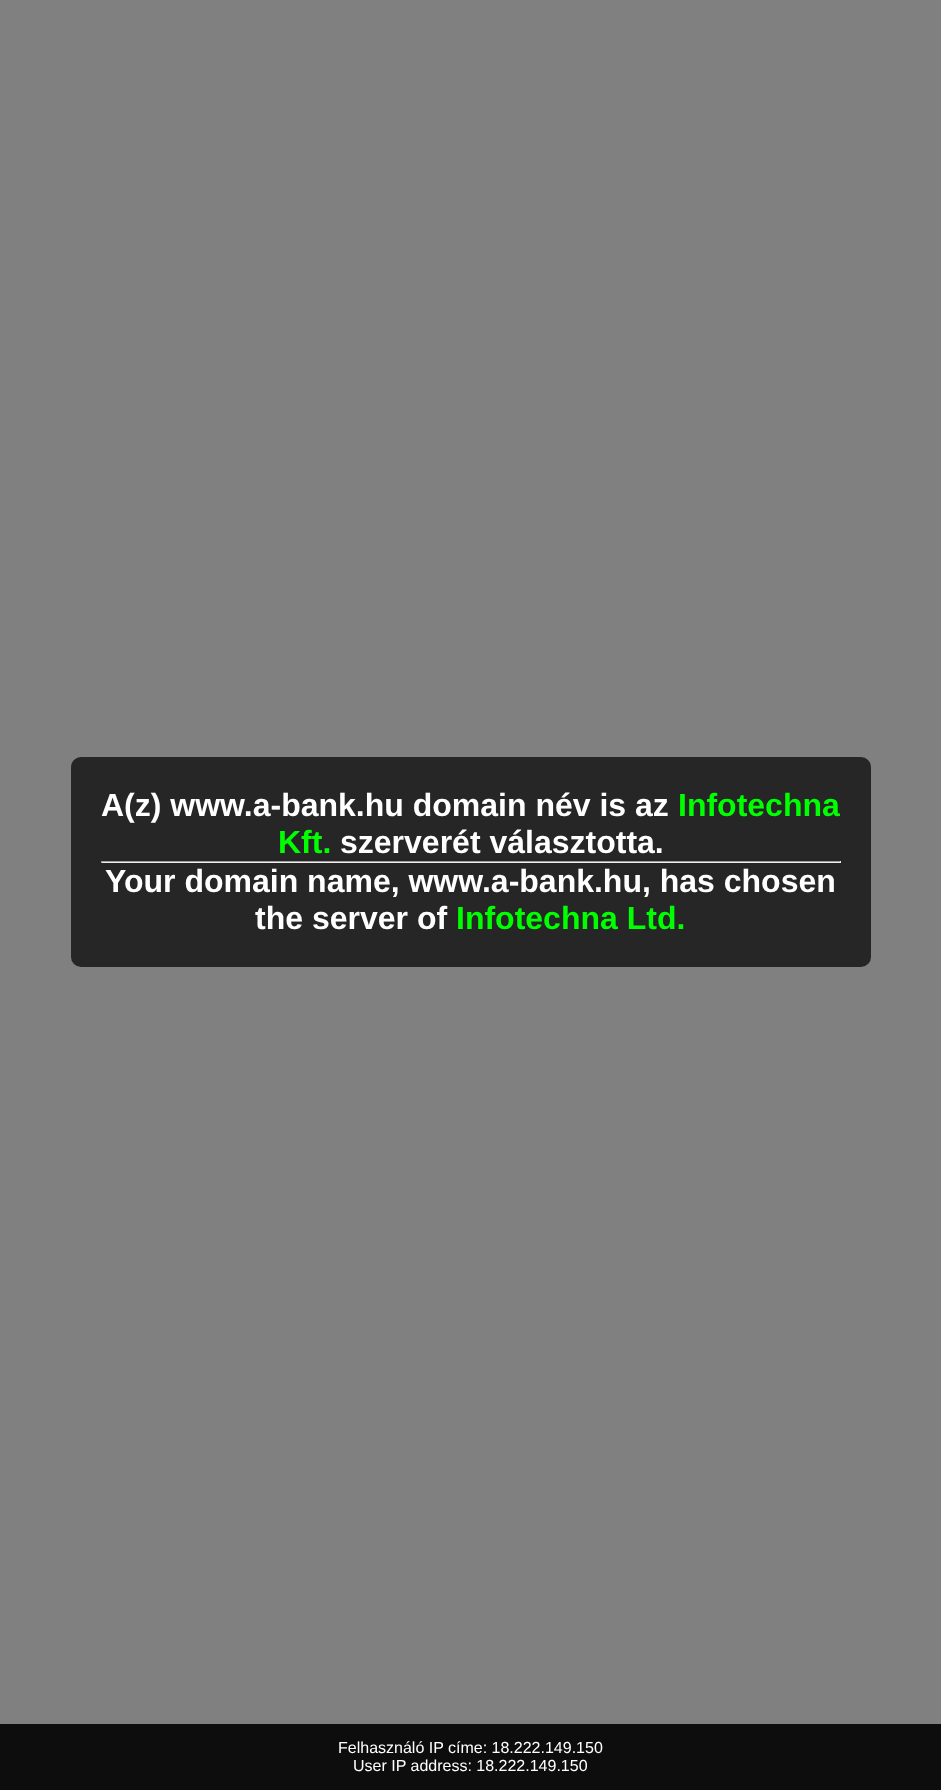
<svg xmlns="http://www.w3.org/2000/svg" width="941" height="1790">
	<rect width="100%" height="100%" fill="#808080" />
	<rect x="71" y="757" width="800" height="210" rx="10" fill="#262626" />
	<text x="101" y="816" font-family="Liberation Sans" font-size="32" font-weight="700" fill="#FFFFFF">A(z) www.a-bank.hu domain név is az</text>
	<g font-family="Liberation Sans" font-size="32" font-weight="700" fill="#00FF00">
		<text x="678" y="816">Infotechna</text>
		<text x="278" y="853">Kft.</text>
	</g>
	<text x="340" y="853" font-family="Liberation Sans" font-size="32" font-weight="700" fill="#FFFFFF">szerverét választotta.</text>
	<rect x="101" y="861" width="740" height="1" fill="#9F9F9F" />
	<rect x="840" y="861" width="1" height="2" fill="#EEEEEE" />
	<rect x="101" y="862" width="740" height="1" fill="#EEEEEE" />
	<rect x="101" y="861" width="1" height="2" fill="#9F9F9F" />
	<g font-family="Liberation Sans" font-size="32" font-weight="700" fill="#FFFFFF">
		<text x="105" y="892">Your domain name, www.a-bank.hu, has chosen</text>
		<text x="255" y="929">the server of</text>
	</g>
	<text x="456" y="929" font-family="Liberation Sans" font-size="32" font-weight="700" fill="#00FF00">Infotechna Ltd.</text>
	<rect x="0" y="1724" width="941" height="66" fill="#0D0D0D" />
	<g font-family="Liberation Sans" font-size="16" fill="#FFFFFF">
		<text x="338" y="1753">Felhasználó IP címe: 18.222.149.150</text>
		<text x="353" y="1771">User IP address: 18.222.149.150</text>
	</g>
</svg>
